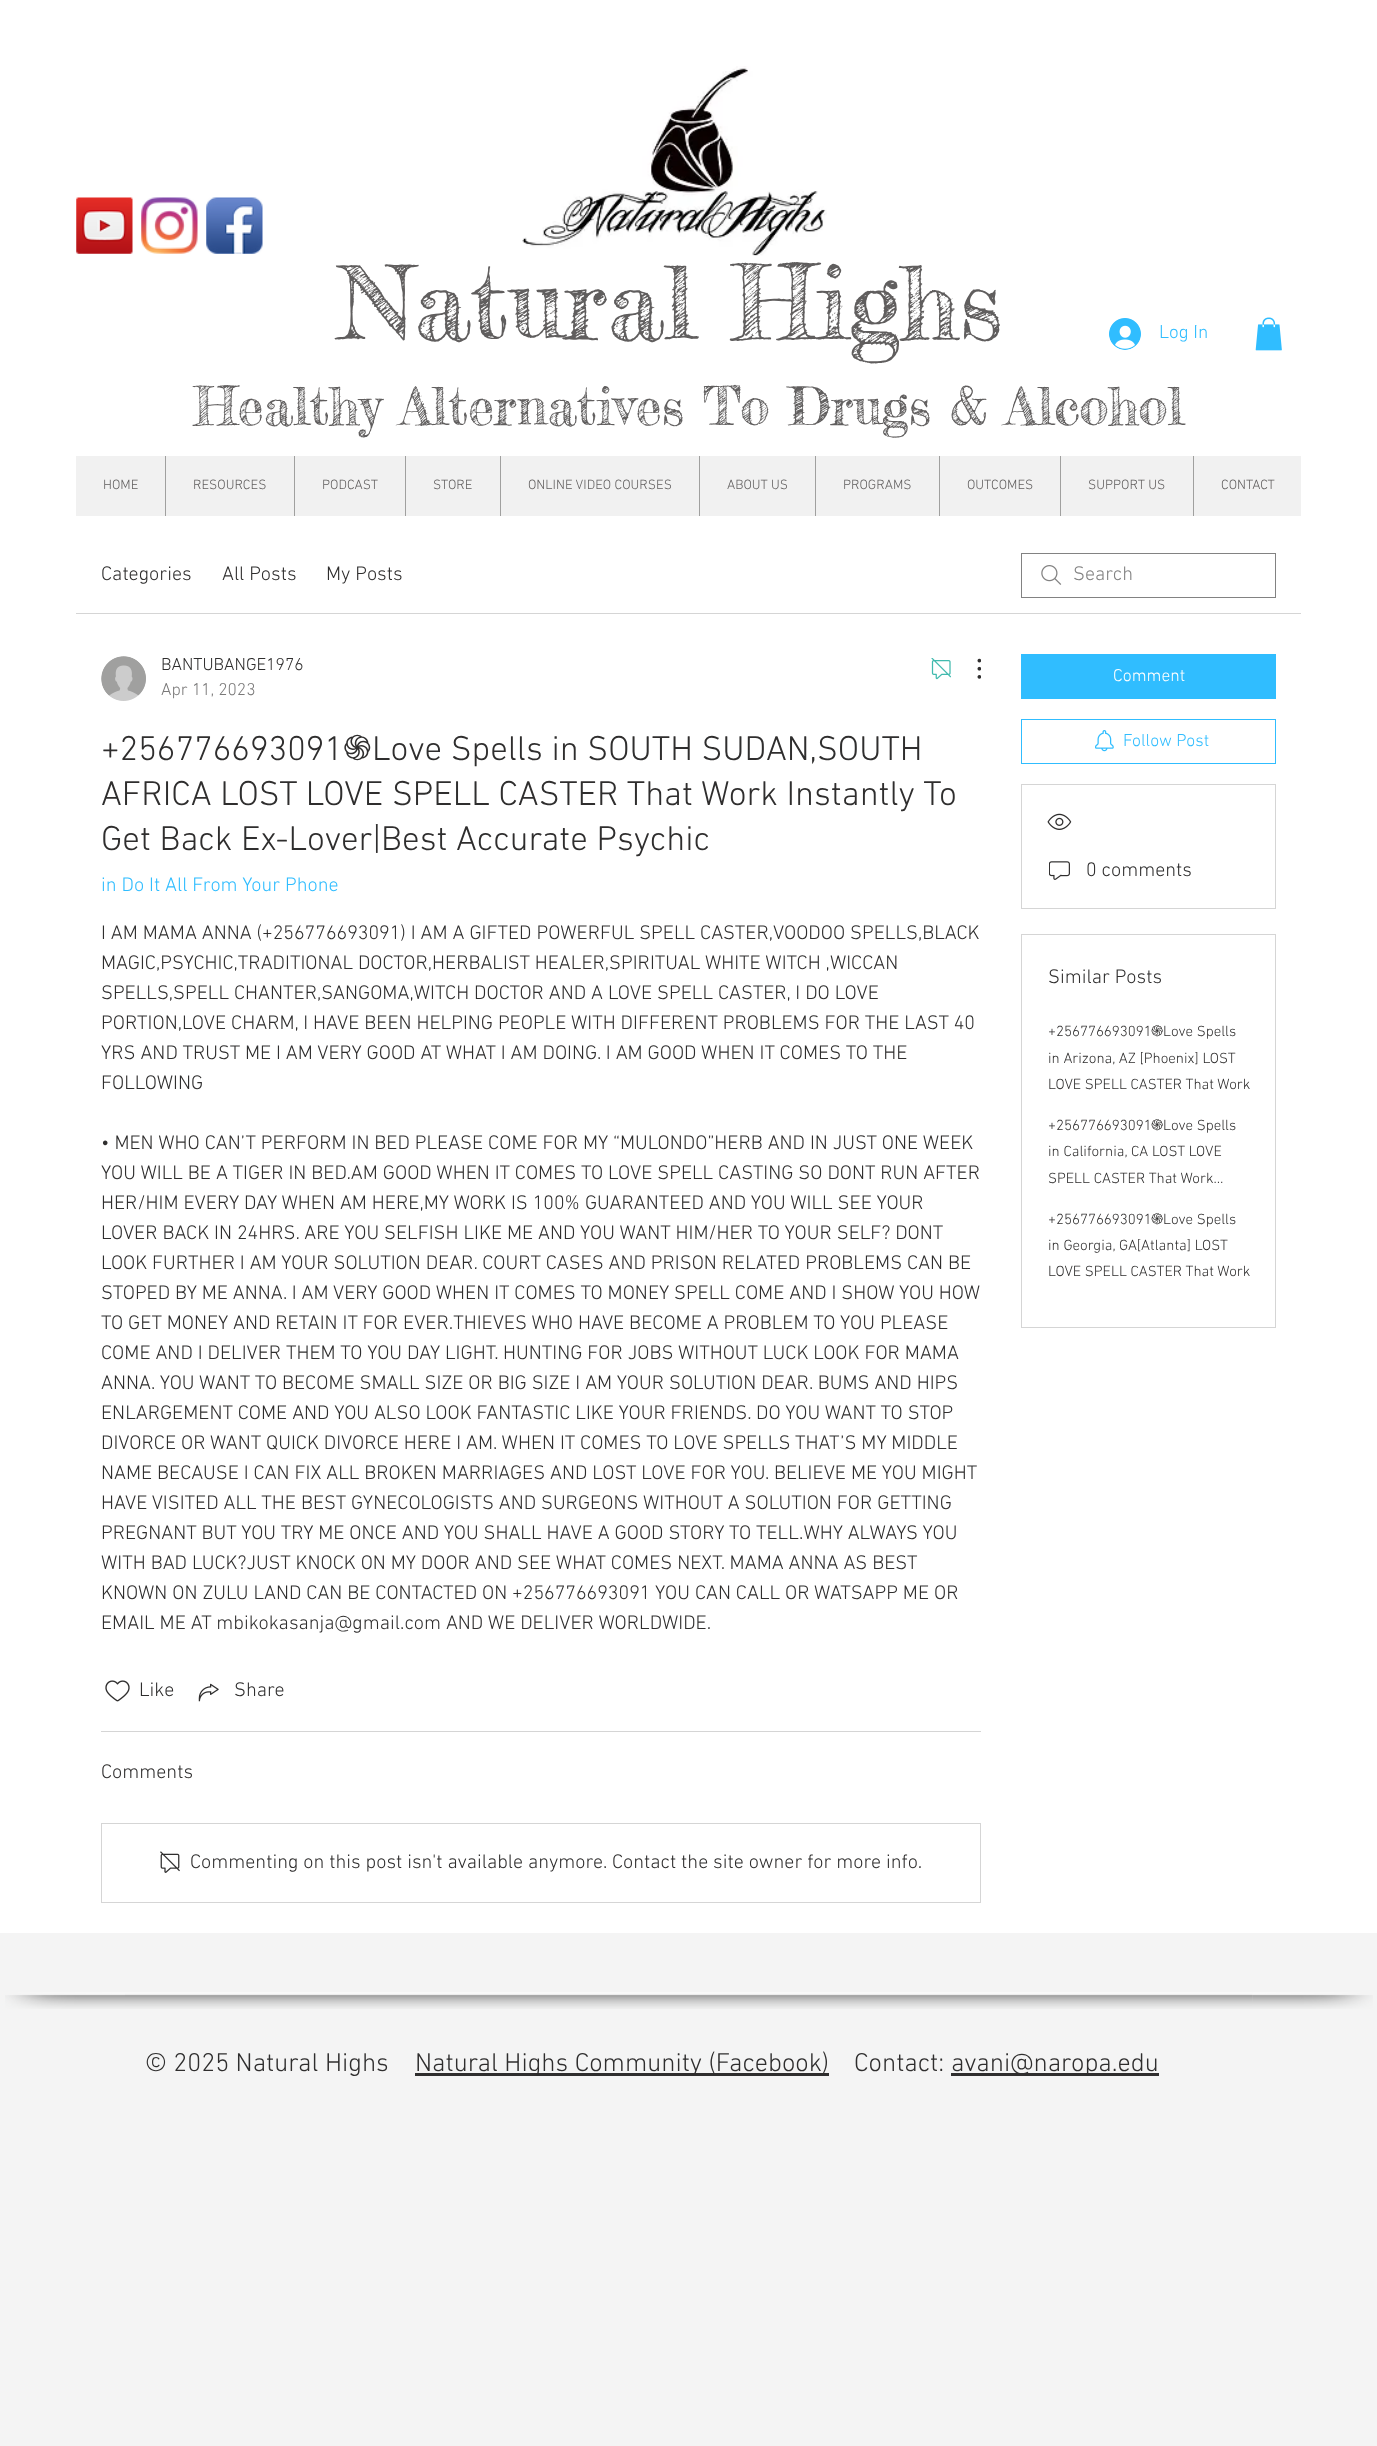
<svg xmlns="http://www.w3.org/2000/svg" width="1377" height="2446">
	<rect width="100%" height="100%" fill="#FFFFFF" />
	<image x="76" y="197" width="57" height="57" href="assets/img1.png" />
	<image x="141" y="197" width="57" height="57" href="assets/img2.png" />
	<image x="206" y="197" width="57" height="57" href="assets/img3.png" />
	<image x="522" y="66" width="305" height="190" href="assets/img4.png" />
	<text x="339" y="339" font-family="Fredericka the Great" font-size="101.25" fill="#605E5E">Natural Highs</text>
	<text x="194" y="425" font-family="Fredericka the Great" font-size="52.5" fill="#605E5E">Healthy Alternatives To Drugs &amp; Alcohol</text>
	<image x="1255" y="317" width="27" height="34" href="assets/img5.png" />
	<image x="1109" y="318" width="32" height="32" href="assets/img6.png" />
	<text x="1159" y="338" font-family="'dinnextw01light'" font-size="19" font-weight="300" fill="#30BDFF">Log In</text>
	<rect x="76" y="456" width="1225" height="60" fill="#F1F1F1" />
	<text x="103" y="489" font-family="'dinnextw01light'" font-size="13.75" font-weight="300" fill="#605E5E">HOME</text>
	<rect x="165" y="456" width="1" height="60" fill="#A0A09F" />
	<text x="193" y="489" font-family="'dinnextw01light'" font-size="13.75" font-weight="300" fill="#605E5E">RESOURCES</text>
	<rect x="294" y="456" width="1" height="60" fill="#A0A09F" />
	<text x="322" y="489" font-family="'dinnextw01light'" font-size="13.75" font-weight="300" fill="#605E5E">PODCAST</text>
	<rect x="405" y="456" width="1" height="60" fill="#A0A09F" />
	<text x="433" y="489" font-family="'dinnextw01light'" font-size="13.75" font-weight="300" fill="#605E5E">STORE</text>
	<rect x="500" y="456" width="1" height="60" fill="#A0A09F" />
	<text x="528" y="489" font-family="'dinnextw01light'" font-size="13.75" font-weight="300" fill="#605E5E">ONLINE VIDEO COURSES</text>
	<rect x="699" y="456" width="1" height="60" fill="#A0A09F" />
	<text x="727" y="489" font-family="'dinnextw01light'" font-size="13.75" font-weight="300" fill="#605E5E">ABOUT US</text>
	<rect x="815" y="456" width="1" height="60" fill="#A0A09F" />
	<text x="843" y="489" font-family="'dinnextw01light'" font-size="13.75" font-weight="300" fill="#605E5E">PROGRAMS</text>
	<rect x="939" y="456" width="1" height="60" fill="#A0A09F" />
	<text x="967" y="489" font-family="'dinnextw01light'" font-size="13.75" font-weight="300" fill="#605E5E">OUTCOMES</text>
	<rect x="1060" y="456" width="1" height="60" fill="#A0A09F" />
	<text x="1088" y="489" font-family="'dinnextw01light'" font-size="13.75" font-weight="300" fill="#605E5E">SUPPORT US</text>
	<rect x="1193" y="456" width="1" height="60" fill="#A0A09F" />
	<text x="1221" y="489" font-family="'dinnextw01light'" font-size="13.75" font-weight="300" fill="#605E5E">CONTACT</text>
	<rect x="76" y="613" width="1225" height="1" fill="#D5D5D5" />
	<g font-family="'dinnextw01light'" font-size="20" font-weight="300" fill="#2F2E2E">
		<text x="101" y="580">Categories</text>
		<text x="222" y="580">All Posts</text>
		<text x="326" y="580">My Posts</text>
	</g>
	<image x="1041" y="565" width="21" height="20" href="assets/img7.png" />
	<rect x="1021.5" y="553.5" width="254" height="44" fill="none" stroke="#828282" />
	<text x="1073" y="580" font-family="'dinnextw01light'" font-size="20" font-weight="300" fill="#828282">Search</text>
	<image x="101" y="656" width="45" height="45" href="assets/img8.png" />
	<text x="161" y="670" font-family="'dinnextw01light'" font-size="17.5" font-weight="300" fill="#2F2E2E">BANTUBANGE1976</text>
	<text x="161" y="695" font-family="'dinnextw01light'" font-size="17.5" font-weight="300" fill="#7A7979">Apr 11, 2023</text>
	<image x="931" y="658" width="20" height="22" href="assets/img9.png" />
	<image x="977" y="658" width="4" height="21" href="assets/img10.png" />
	<text x="101" y="760" font-family="'dinnextw01light'" font-size="35" font-weight="300" fill="#2F2E2E">+256776693091</text>
	<text x="343" y="760" font-family="Noto Sans Armenian" font-size="35" fill="#2F2E2E">֍</text>
	<g font-family="'dinnextw01light'" font-size="35" font-weight="300" fill="#2F2E2E">
		<text x="372" y="760">Love Spells in SOUTH SUDAN,SOUTH</text>
		<text x="101" y="805">AFRICA LOST LOVE SPELL CASTER That Work Instantly To</text>
		<text x="101" y="850">Get Back Ex-Lover|Best Accurate Psychic</text>
	</g>
	<text x="101" y="891" font-family="'dinnextw01light'" font-size="20" font-weight="300" fill="#30BDFF">in Do It All From Your Phone</text>
	<g font-family="'dinnextw01light'" font-size="20" font-weight="300" fill="#2F2E2E">
		<text x="101" y="939">I AM MAMA ANNA (+256776693091) I AM A GIFTED POWERFUL SPELL CASTER,VOODOO SPELLS,BLACK</text>
		<text x="101" y="969">MAGIC,PSYCHIC,TRADITIONAL DOCTOR,HERBALIST HEALER,SPIRITUAL WHITE WITCH ,WICCAN</text>
		<text x="101" y="999">SPELLS,SPELL CHANTER,SANGOMA,WITCH DOCTOR AND A LOVE SPELL CASTER, I DO LOVE</text>
		<text x="101" y="1029">PORTION,LOVE CHARM, I HAVE BEEN HELPING PEOPLE WITH DIFFERENT PROBLEMS FOR THE LAST 40</text>
		<text x="101" y="1059">YRS AND TRUST ME I AM VERY GOOD AT WHAT I AM DOING. I AM GOOD WHEN IT COMES TO THE</text>
		<text x="101" y="1089">FOLLOWING</text>
		<text x="101" y="1149">• MEN WHO CAN’T PERFORM IN BED PLEASE COME FOR MY “MULONDO”HERB AND IN JUST ONE WEEK</text>
		<text x="101" y="1179">YOU WILL BE A TIGER IN BED.AM GOOD WHEN IT COMES TO LOVE SPELL CASTING SO DONT RUN AFTER</text>
		<text x="101" y="1209">HER/HIM EVERY DAY WHEN AM HERE,MY WORK IS 100% GUARANTEED AND YOU WILL SEE YOUR</text>
		<text x="101" y="1239">LOVER BACK IN 24HRS. ARE YOU SELFISH LIKE ME AND YOU WANT HIM/HER TO YOUR SELF? DONT</text>
		<text x="101" y="1269">LOOK FURTHER I AM YOUR SOLUTION DEAR. COURT CASES AND PRISON RELATED PROBLEMS CAN BE</text>
		<text x="101" y="1299">STOPED BY ME ANNA. I AM VERY GOOD WHEN IT COMES TO MONEY SPELL COME AND I SHOW YOU HOW</text>
		<text x="101" y="1329">TO GET MONEY AND RETAIN IT FOR EVER.THIEVES WHO HAVE BECOME A PROBLEM TO YOU PLEASE</text>
		<text x="101" y="1359">COME AND I DELIVER THEM TO YOU DAY LIGHT. HUNTING FOR JOBS WITHOUT LUCK LOOK FOR MAMA</text>
		<text x="101" y="1389">ANNA. YOU WANT TO BECOME SMALL SIZE OR BIG SIZE I AM YOUR SOLUTION DEAR. BUMS AND HIPS</text>
		<text x="101" y="1419">ENLARGEMENT COME AND YOU ALSO LOOK FANTASTIC LIKE YOUR FRIENDS. DO YOU WANT TO STOP</text>
		<text x="101" y="1449">DIVORCE OR WANT QUICK DIVORCE HERE I AM. WHEN IT COMES TO LOVE SPELLS THAT’S MY MIDDLE</text>
		<text x="101" y="1479">NAME BECAUSE I CAN FIX ALL BROKEN MARRIAGES AND LOST LOVE FOR YOU. BELIEVE ME YOU MIGHT</text>
		<text x="101" y="1509">HAVE VISITED ALL THE BEST GYNECOLOGISTS AND SURGEONS WITHOUT A SOLUTION FOR GETTING</text>
		<text x="101" y="1539">PREGNANT BUT YOU TRY ME ONCE AND YOU SHALL HAVE A GOOD STORY TO TELL.WHY ALWAYS YOU</text>
		<text x="101" y="1569">WITH BAD LUCK?JUST KNOCK ON MY DOOR AND SEE WHAT COMES NEXT. MAMA ANNA AS BEST</text>
		<text x="101" y="1599">KNOWN ON ZULU LAND CAN BE CONTACTED ON +256776693091 YOU CAN CALL OR WATSAPP ME OR</text>
		<text x="101" y="1629">EMAIL ME AT mbikokasanja@gmail.com AND WE DELIVER WORLDWIDE.</text>
	</g>
	<image x="105" y="1680" width="25" height="22" href="assets/img11.png" />
	<text x="139" y="1696" font-family="'dinnextw01light'" font-size="20" font-weight="300" fill="#2F2E2E">Like</text>
	<image x="198" y="1683" width="21" height="19" href="assets/img12.png" />
	<text x="234" y="1696" font-family="'dinnextw01light'" font-size="20" font-weight="300" fill="#2F2E2E">Share</text>
	<rect x="101" y="1731" width="880" height="1" fill="#D5D5D5" />
	<text x="101" y="1778" font-family="'dinnextw01light'" font-size="20" font-weight="300" fill="#2F2E2E">Comments</text>
	<rect x="101.5" y="1823.5" width="879" height="79" fill="none" stroke="#D5D5D5" />
	<image x="160" y="1851" width="20" height="22" href="assets/img13.png" />
	<text x="190" y="1868" font-family="'dinnextw01light'" font-size="20" font-weight="300" fill="#2F2E2E">Commenting on this post isn't available anymore. Contact the site owner for more info.</text>
	<rect x="1021" y="654" width="255" height="45" fill="#30BDFF" />
	<text x="1113" y="681" font-family="'dinnextw01light'" font-size="17.5" font-weight="300" fill="#FFFFFF">Comment</text>
	<rect x="1021.5" y="719.5" width="254" height="44" fill="none" stroke="#30BDFF" />
	<image x="1095" y="730" width="19" height="22" href="assets/img14.png" />
	<text x="1123" y="746" font-family="'dinnextw01light'" font-size="17.5" font-weight="300" fill="#30BDFF">Follow Post</text>
	<rect x="1021.5" y="784.5" width="254" height="124" fill="none" stroke="#D5D5D5" />
	<image x="1047" y="813" width="25" height="17" href="assets/img15.png" />
	<image x="1049" y="861" width="21" height="19" href="assets/img16.png" />
	<text x="1086" y="876" font-family="'dinnextw01light'" font-size="20" font-weight="300" fill="#2F2E2E">0 comments</text>
	<rect x="1021.5" y="934.5" width="254" height="393" fill="none" stroke="#D5D5D5" />
	<text x="1048" y="983" font-family="'dinnextw01light'" font-size="20" font-weight="300" fill="#2F2E2E">Similar Posts</text>
	<text x="1048" y="1036" font-family="'dinnextw01light'" font-size="15" font-weight="300" fill="#2F2E2E">+256776693091</text>
	<text x="1151" y="1036" font-family="Noto Sans Armenian" font-size="15" fill="#2F2E2E">֍</text>
	<g font-family="'dinnextw01light'" font-size="15" font-weight="300" fill="#2F2E2E">
		<text x="1163" y="1036">Love Spells</text>
		<text x="1048" y="1063">in Arizona, AZ [Phoenix] LOST</text>
		<text x="1048" y="1089">LOVE SPELL CASTER That Work</text>
		<text x="1048" y="1130">+256776693091</text>
	</g>
	<text x="1151" y="1130" font-family="Noto Sans Armenian" font-size="15" fill="#2F2E2E">֍</text>
	<g font-family="'dinnextw01light'" font-size="15" font-weight="300" fill="#2F2E2E">
		<text x="1163" y="1130">Love Spells</text>
		<text x="1048" y="1156">in California, CA LOST LOVE</text>
		<text x="1048" y="1183">SPELL CASTER That Work…</text>
		<text x="1048" y="1224">+256776693091</text>
	</g>
	<text x="1151" y="1224" font-family="Noto Sans Armenian" font-size="15" fill="#2F2E2E">֍</text>
	<g font-family="'dinnextw01light'" font-size="15" font-weight="300" fill="#2F2E2E">
		<text x="1163" y="1224">Love Spells</text>
		<text x="1048" y="1250">in Georgia, GA[Atlanta] LOST</text>
		<text x="1048" y="1276">LOVE SPELL CASTER That Work</text>
	</g>
	<rect x="0" y="1933" width="1377" height="513" fill="#F4F4F4" />
	<image x="5" y="1992" width="120" height="17" href="assets/img17.png" />
	<image x="125" y="1992" width="1128" height="17" href="assets/img18.png" />
	<image x="1252" y="1992" width="121" height="17" href="assets/img19.png" />
	<text x="145" y="2071" font-family="'dinnextw01light'" font-size="26.25" font-weight="300" fill="#2F2E2E">© 2025 Natural Highs</text>
	<rect x="415" y="2073" width="414" height="3" fill="#2F2E2E" />
	<g font-family="'dinnextw01light'" font-size="26.25" font-weight="300" fill="#2F2E2E">
		<text x="415" y="2071">Natural Highs Community (Facebook)</text>
		<text x="854" y="2071">Contact:</text>
	</g>
	<rect x="951" y="2073" width="208" height="3" fill="#2F2E2E" />
	<text x="951" y="2071" font-family="'dinnextw01light'" font-size="26.25" font-weight="300" fill="#2F2E2E">avani@naropa.edu</text>
</svg>
